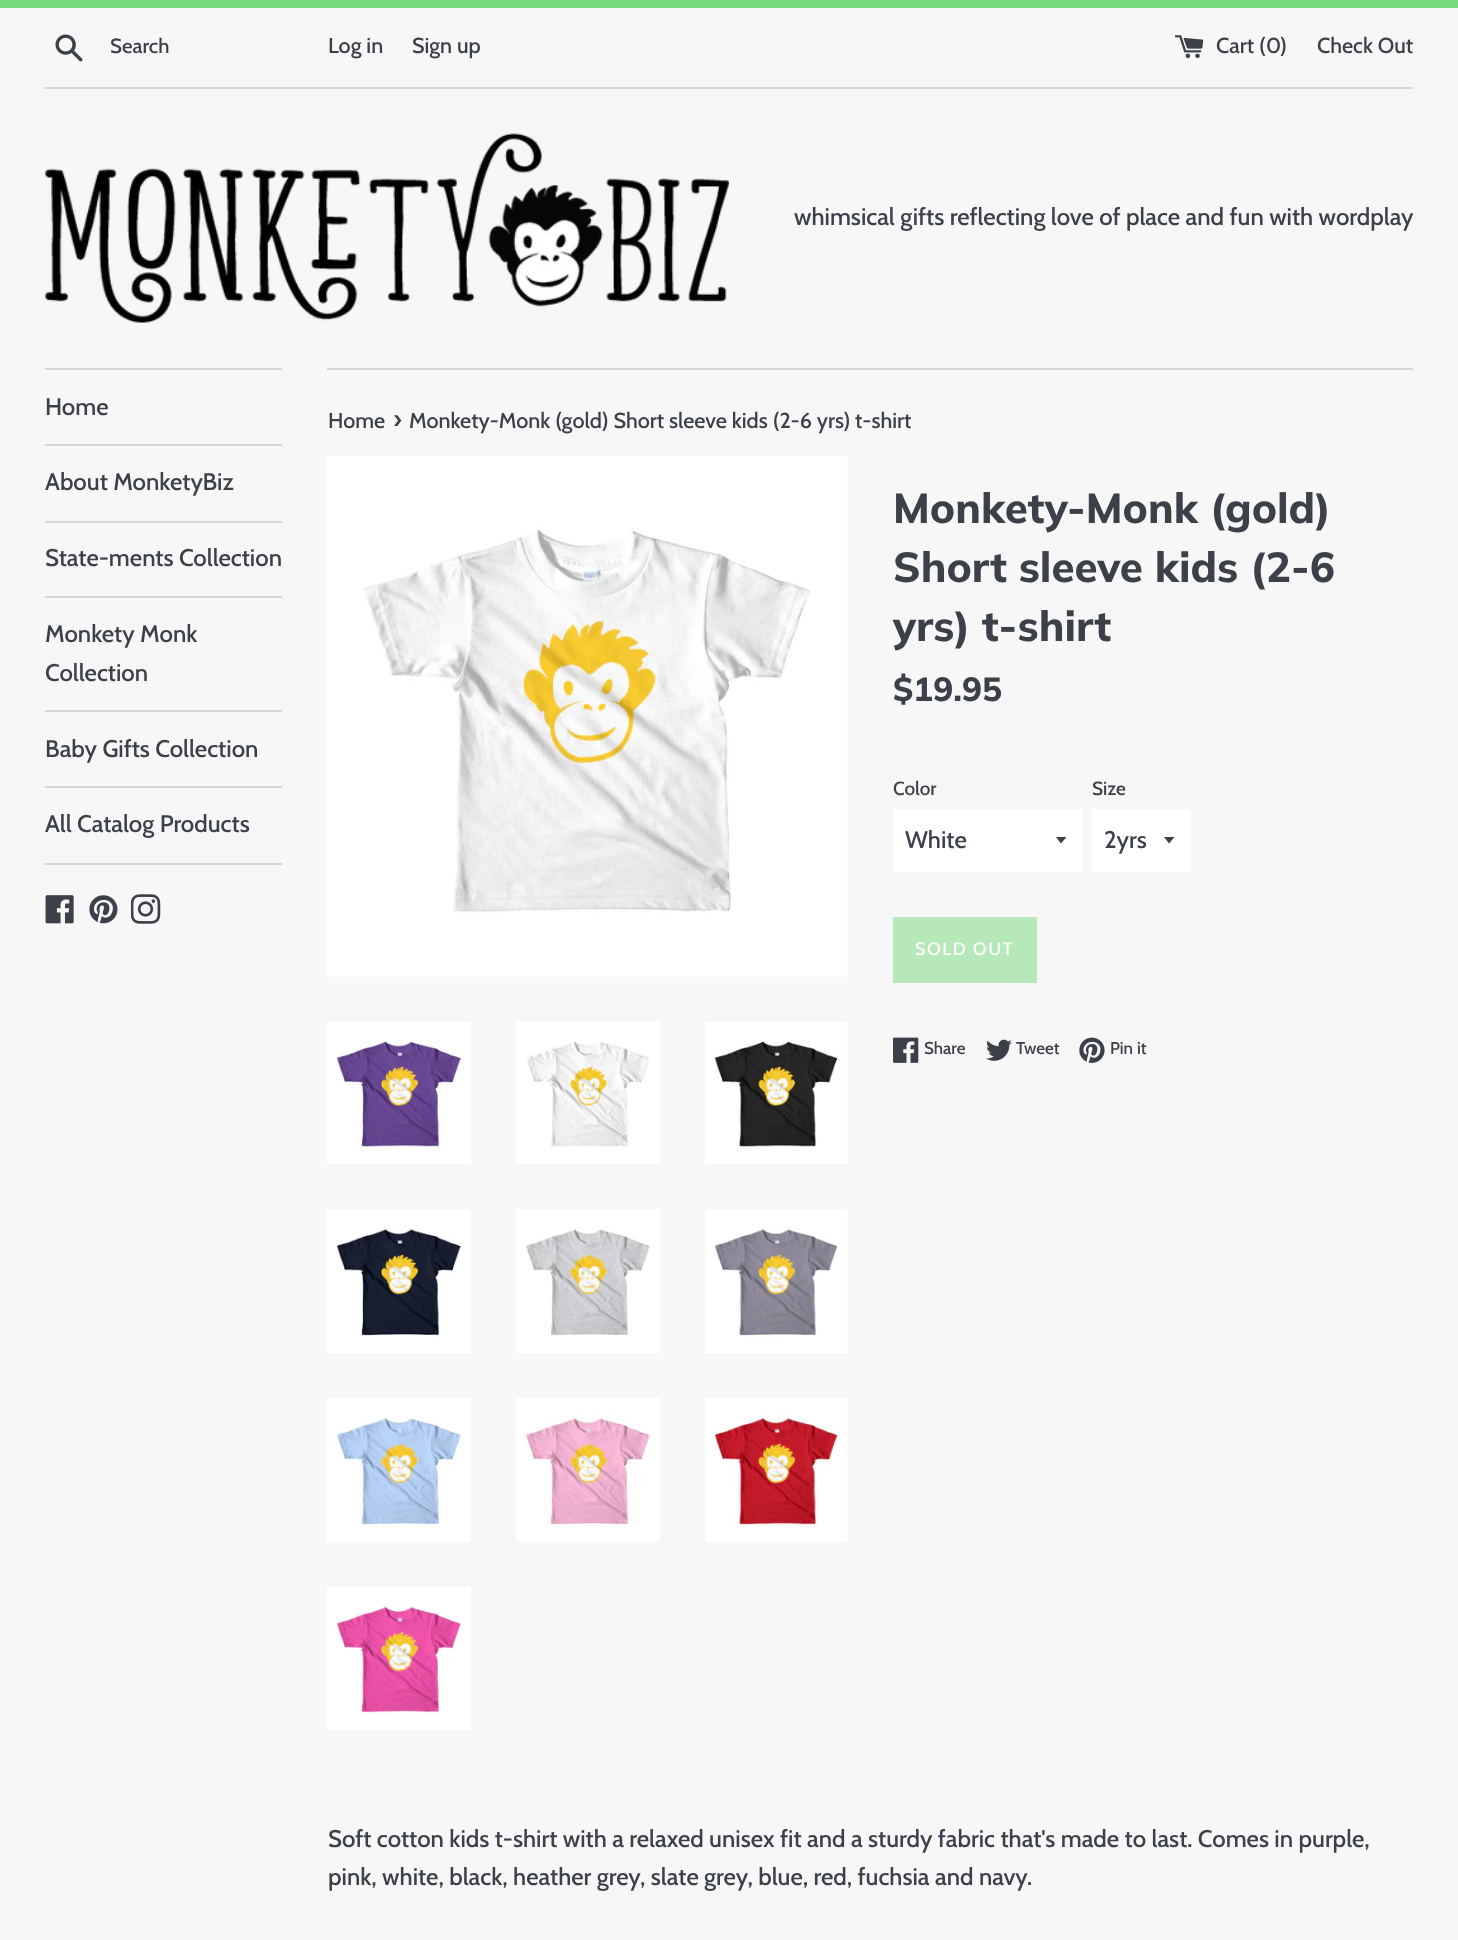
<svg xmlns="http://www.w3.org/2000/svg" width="1458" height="1940">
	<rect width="100%" height="100%" fill="#F7F7F7" />
	<rect x="0" y="0" width="1458" height="8" fill="#76D97D" />
	<image x="55" y="34" width="28" height="28" href="assets/img1.png" />
	<text x="110" y="53" font-family="Cabin" font-size="20.5" font-weight="500" fill="#3C4049">Search</text>
	<g font-family="Cabin" font-size="21.6" font-weight="500" fill="#3C4049">
		<text x="328" y="53">Log in</text>
		<text x="412" y="53">Sign up</text>
	</g>
	<image x="1175" y="35" width="29" height="24" href="assets/img2.png" />
	<g font-family="Cabin" font-size="21.6" font-weight="500" fill="#3C4049">
		<text x="1216" y="53">Cart (</text>
		<text x="1266" y="53">0</text>
		<text x="1280" y="53">)</text>
		<text x="1317" y="53">Check Out</text>
	</g>
	<rect x="45" y="87" width="1368" height="2" fill="#D7D8D2" />
	<image x="45" y="133" width="684" height="190" href="assets/img3.png" />
	<text x="794" y="225" font-family="Cabin" font-size="24" font-weight="500" fill="#3C4049">whimsical gifts reflecting love of place and fun with wordplay</text>
	<rect x="45" y="368" width="237" height="2" fill="#D7D8D2" />
	<rect x="45" y="444" width="237" height="2" fill="#D7D8D2" />
	<text x="45" y="415" font-family="Cabin" font-size="24" font-weight="500" fill="#3C4049">Home</text>
	<rect x="45" y="521" width="237" height="2" fill="#D7D8D2" />
	<text x="45" y="490" font-family="Cabin" font-size="24" font-weight="500" fill="#3C4049">About MonketyBiz</text>
	<rect x="45" y="596" width="237" height="2" fill="#D7D8D2" />
	<text x="45" y="566" font-family="Cabin" font-size="24" font-weight="500" fill="#3C4049">State-ments Collection</text>
	<rect x="45" y="710" width="237" height="2" fill="#D7D8D2" />
	<g font-family="Cabin" font-size="24" font-weight="500" fill="#3C4049">
		<text x="45" y="642">Monkety Monk</text>
		<text x="45" y="681">Collection</text>
	</g>
	<rect x="45" y="786" width="237" height="2" fill="#D7D8D2" />
	<text x="45" y="757" font-family="Cabin" font-size="24" font-weight="500" fill="#3C4049">Baby Gifts Collection</text>
	<rect x="45" y="863" width="237" height="2" fill="#D7D8D2" />
	<text x="45" y="832" font-family="Cabin" font-size="24" font-weight="500" fill="#3C4049">All Catalog Products</text>
	<image x="45" y="895" width="29" height="29" href="assets/img4.png" />
	<image x="89" y="895" width="29" height="29" href="assets/img5.png" />
	<image x="131" y="894" width="30" height="30" href="assets/img6.png" />
	<rect x="327" y="368" width="1086" height="2" fill="#D7D8D2" />
	<text x="328" y="428" font-family="Cabin" font-size="21.6" font-weight="500" fill="#3C4049">Home</text>
	<text x="393" y="428" font-family="Cabin" font-size="26" font-weight="500" fill="#3C4049">›</text>
	<g font-family="Cabin" font-size="21.6" font-weight="500" fill="#3C4049">
		<text x="409" y="428">Monkety-Monk (gold) Short sleeve kids (2-6 yrs)</text>
		<text x="855" y="428">t-shirt</text>
	</g>
	<image x="327" y="456" width="521" height="521" href="assets/img7.png" />
	<image x="327" y="1021" width="144" height="143" href="assets/img8.png" />
	<image x="516" y="1021" width="144" height="143" href="assets/img9.png" />
	<image x="705" y="1021" width="143" height="143" href="assets/img10.png" />
	<image x="327" y="1209" width="144" height="144" href="assets/img11.png" />
	<image x="516" y="1209" width="144" height="144" href="assets/img12.png" />
	<image x="705" y="1209" width="143" height="144" href="assets/img13.png" />
	<image x="327" y="1398" width="144" height="144" href="assets/img14.png" />
	<image x="516" y="1398" width="144" height="144" href="assets/img15.png" />
	<image x="705" y="1398" width="143" height="144" href="assets/img16.png" />
	<image x="327" y="1587" width="144" height="143" href="assets/img17.png" />
	<g font-family="Muli" font-size="42" font-weight="800" fill="#3C4049">
		<text x="893" y="523">Monkety-Monk (gold)</text>
		<text x="893" y="582">Short sleeve kids (2-6</text>
		<text x="893" y="641">yrs) t-shirt</text>
	</g>
	<text x="893" y="701" font-family="Muli" font-size="33.5" font-weight="800" fill="#3C4049">$19.95</text>
	<text x="893" y="795" font-family="Cabin" font-size="19" font-weight="500" fill="#3C4049">Color</text>
	<rect x="893" y="809" width="190" height="63" fill="#FFFFFF" />
	<path d="M1056 837L1061 843.5L1066.5 837Z" fill="#3C4049" />
	<text x="905" y="848" font-family="Cabin" font-size="24" font-weight="500" fill="#3C4049">White</text>
	<text x="1092" y="795" font-family="Cabin" font-size="19" font-weight="500" fill="#3C4049">Size</text>
	<rect x="1092" y="809" width="99" height="63" fill="#FFFFFF" />
	<path d="M1164 837L1169 843.5L1174.5 837Z" fill="#3C4049" />
	<text x="1104" y="848" font-family="Cabin" font-size="24" font-weight="500" fill="#3C4049">2yrs</text>
	<rect x="893" y="917" width="144" height="66" fill="#B7E8BA" />
	<text x="915" y="955" font-family="Cabin" font-size="18" font-weight="500" letter-spacing="1.5" fill="#FBFBFB">SOLD OUT</text>
	<image x="893" y="1037" width="26" height="26" href="assets/img18.png" />
	<text x="924" y="1054" font-family="Cabin" font-size="17" font-weight="500" fill="#3C4049">Share</text>
	<image x="986" y="1039" width="26" height="22" href="assets/img19.png" />
	<text x="1016" y="1054" font-family="Cabin" font-size="17" font-weight="500" fill="#3C4049">Tweet</text>
	<image x="1079" y="1037" width="26" height="26" href="assets/img20.png" />
	<text x="1110" y="1054" font-family="Cabin" font-size="17" font-weight="500" fill="#3C4049">Pin it</text>
	<g font-family="Cabin" font-size="24" font-weight="500" fill="#3C4049">
		<text x="328" y="1847">Soft cotton kids t-shirt with a relaxed unisex fit and a sturdy fabric that's made to last. Comes in purple,</text>
		<text x="328" y="1885">pink, white, black, heather grey, slate grey, blue, red, fuchsia and navy.</text>
	</g>
</svg>
